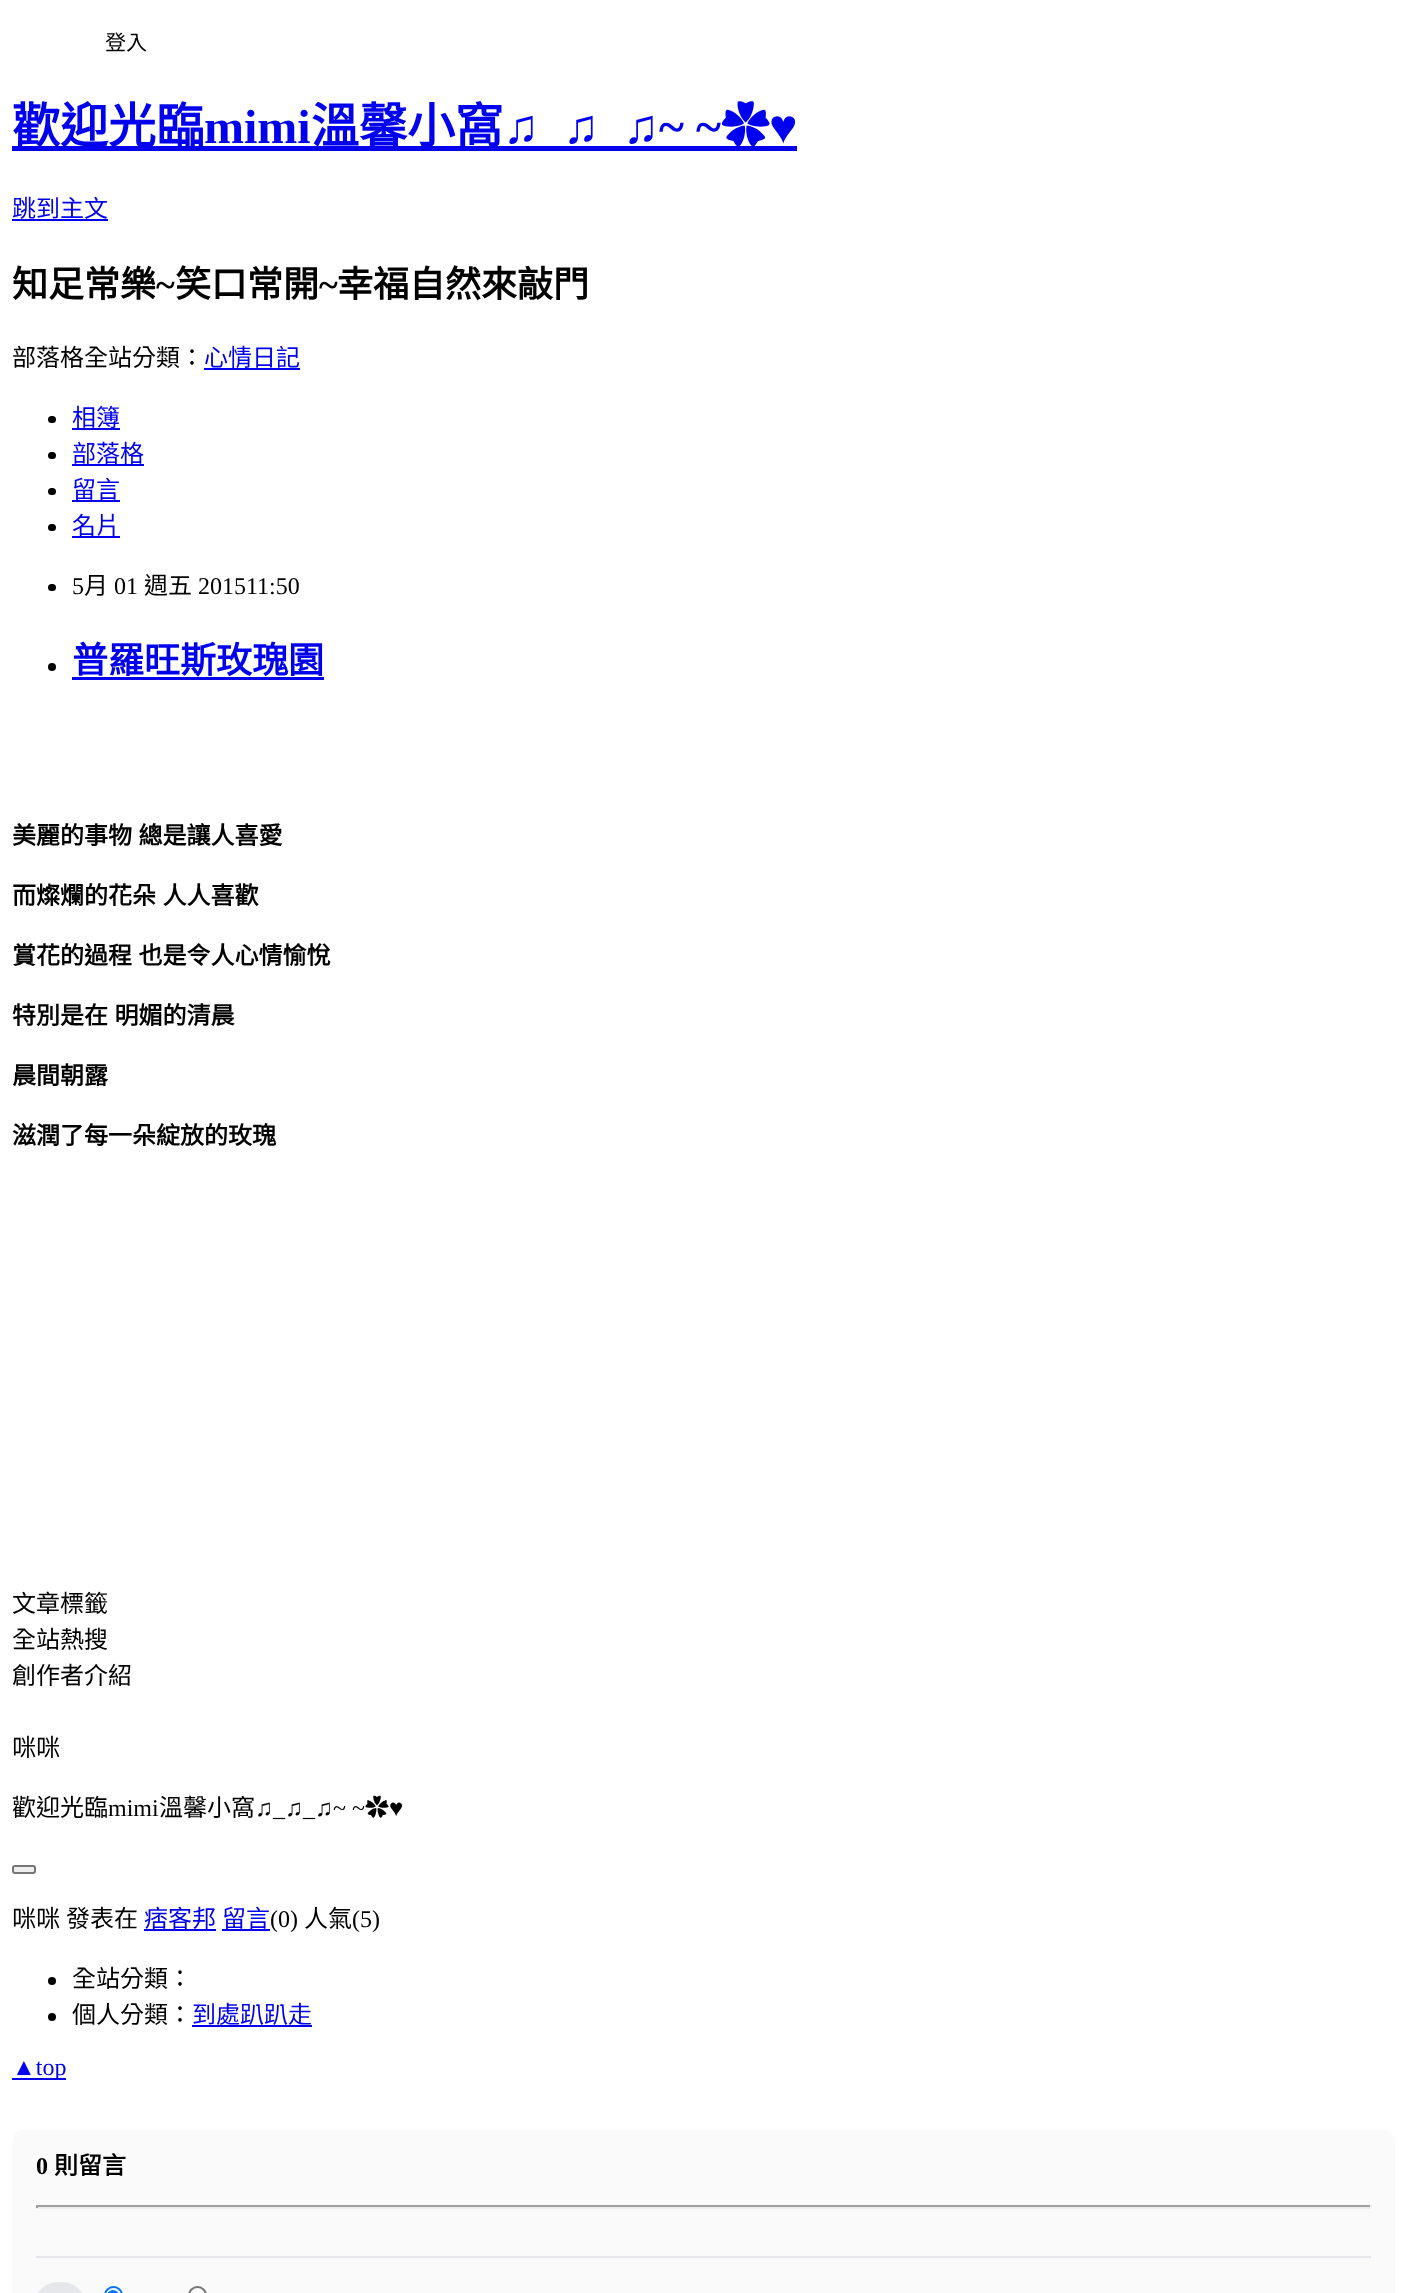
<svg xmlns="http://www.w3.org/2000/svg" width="1407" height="2293">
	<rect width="100%" height="100%" fill="#FFFFFF" />
	<text x="105" y="50" font-family="Noto Sans CJK TC" font-size="21" fill="#000000">登入</text>
	<rect x="12" y="146" width="785" height="5" fill="#0000EE" />
	<text x="12" y="143" font-family="Noto Sans CJK TC" font-size="48" font-weight="700" fill="#0000EE">歡迎光臨</text>
	<text x="204" y="143" font-family="Liberation Serif" font-size="48" font-weight="700" fill="#0000EE">mimi</text>
	<text x="311" y="143" font-family="Noto Sans CJK TC" font-size="48" font-weight="700" fill="#0000EE">溫馨小窩</text>
	<text x="503" y="143" font-family="Liberation Serif" font-size="48" font-weight="700" fill="#0000EE">♫_♫_♫~ ~</text>
	<text x="721" y="143" font-family="Noto Sans CJK TC" font-size="48" font-weight="700" fill="#0000EE">✿</text>
	<text x="769" y="143" font-family="Liberation Serif" font-size="48" font-weight="700" fill="#0000EE">♥</text>
	<text x="12" y="217" font-family="Noto Sans CJK TC" font-size="24" fill="#0000EE">跳到主文</text>
	<rect x="12" y="219" width="96" height="2" fill="#0000EE" />
	<text x="12" y="297" font-family="Noto Sans CJK TC" font-size="36" font-weight="700" fill="#000000">知足常樂</text>
	<text x="156" y="297" font-family="Liberation Serif" font-size="36" font-weight="700" fill="#000000">~</text>
	<text x="175" y="297" font-family="Noto Sans CJK TC" font-size="36" font-weight="700" fill="#000000">笑口常開</text>
	<text x="319" y="297" font-family="Liberation Serif" font-size="36" font-weight="700" fill="#000000">~</text>
	<text x="337" y="297" font-family="Noto Sans CJK TC" font-size="36" font-weight="700" fill="#000000">幸福自然來敲門</text>
	<text x="12" y="366" font-family="Noto Sans CJK TC" font-size="24" fill="#000000">部落格全站分類：</text>
	<rect x="204" y="368" width="96" height="2" fill="#0000EE" />
	<text x="204" y="366" font-family="Noto Sans CJK TC" font-size="24" fill="#0000EE">心情日記</text>
	<rect x="48" y="416" width="8" height="7" rx="3.5" fill="#000000" />
	<text x="72" y="426" font-family="Noto Sans CJK TC" font-size="24" fill="#0000EE">相簿</text>
	<rect x="72" y="428" width="48" height="2" fill="#0000EE" />
	<rect x="48" y="452" width="8" height="7" rx="3.5" fill="#000000" />
	<text x="72" y="462" font-family="Noto Sans CJK TC" font-size="24" fill="#0000EE">部落格</text>
	<rect x="72" y="464" width="72" height="2" fill="#0000EE" />
	<rect x="48" y="488" width="8" height="7" rx="3.5" fill="#000000" />
	<text x="72" y="498" font-family="Noto Sans CJK TC" font-size="24" fill="#0000EE">留言</text>
	<rect x="72" y="500" width="48" height="2" fill="#0000EE" />
	<rect x="48" y="524" width="8" height="7" rx="3.5" fill="#000000" />
	<text x="72" y="534" font-family="Noto Sans CJK TC" font-size="24" fill="#0000EE">名片</text>
	<rect x="72" y="536" width="48" height="2" fill="#0000EE" />
	<rect x="48" y="584" width="8" height="7" rx="3.5" fill="#000000" />
	<text x="72" y="594" font-family="Liberation Serif" font-size="24" fill="#000000">5</text>
	<text x="84" y="594" font-family="Noto Sans CJK TC" font-size="24" fill="#000000">月</text>
	<text x="114" y="594" font-family="Liberation Serif" font-size="24" fill="#000000">01</text>
	<text x="144" y="594" font-family="Noto Sans CJK TC" font-size="24" fill="#000000">週五</text>
	<text x="198" y="594" font-family="Liberation Serif" font-size="24" fill="#000000">201511:50</text>
	<circle cx="52" cy="667" r="4" fill="#000000" />
	<text x="72" y="673" font-family="Noto Sans CJK TC" font-size="36" font-weight="700" fill="#0000EE">普羅旺斯玫瑰園</text>
	<rect x="72" y="677" width="252" height="3" fill="#0000EE" />
	<g font-family="Noto Sans CJK TC" font-size="24" font-weight="700" fill="#000000">
		<text x="12" y="844" word-spacing="1">美麗的事物 總是讓人喜愛</text>
		<text x="12" y="904" word-spacing="1">而燦爛的花朵 人人喜歡</text>
		<text x="12" y="964" word-spacing="1">賞花的過程 也是令人心情愉悅</text>
		<text x="12" y="1024" word-spacing="1">特別是在 明媚的清晨</text>
		<text x="12" y="1084">晨間朝露</text>
		<text x="12" y="1144">滋潤了每一朵綻放的玫瑰</text>
	</g>
	<g font-family="Noto Sans CJK TC" font-size="24" fill="#000000">
		<text x="12" y="1612">文章標籤</text>
		<text x="12" y="1648">全站熱搜</text>
		<text x="12" y="1684">創作者介紹</text>
		<text x="12" y="1756">咪咪</text>
		<text x="12" y="1816">歡迎光臨</text>
	</g>
	<text x="108" y="1816" font-family="Liberation Serif" font-size="24" fill="#000000">mimi</text>
	<text x="159" y="1816" font-family="Noto Sans CJK TC" font-size="24" fill="#000000">溫馨小窩</text>
	<text x="255" y="1816" font-family="Liberation Serif" font-size="24" fill="#000000">♫_♫_♫~ ~</text>
	<text x="365" y="1816" font-family="Noto Sans CJK TC" font-size="24" fill="#000000">✿</text>
	<text x="389" y="1816" font-family="Liberation Serif" font-size="24" fill="#000000">♥</text>
	<rect x="13" y="1866" width="22" height="7" rx="2" fill="#EFEFEF" stroke="#767676" stroke-width="2" />
	<g font-family="Noto Sans CJK TC" font-size="24" fill="#000000">
		<text x="12" y="1927">咪咪</text>
		<text x="66" y="1927">發表在</text>
	</g>
	<text x="144" y="1927" font-family="Noto Sans CJK TC" font-size="24" fill="#0000EE">痞客邦</text>
	<rect x="144" y="1929" width="72" height="2" fill="#0000EE" />
	<text x="222" y="1927" font-family="Noto Sans CJK TC" font-size="24" fill="#0000EE">留言</text>
	<rect x="222" y="1929" width="48" height="2" fill="#0000EE" />
	<text x="270" y="1927" font-family="Liberation Serif" font-size="24" fill="#000000">(0)</text>
	<text x="304" y="1927" font-family="Noto Sans CJK TC" font-size="24" fill="#000000">人氣</text>
	<text x="352" y="1927" font-family="Liberation Serif" font-size="24" fill="#000000">(5)</text>
	<circle cx="52" cy="1981" r="4" fill="#000000" />
	<text x="72" y="1987" font-family="Noto Sans CJK TC" font-size="24" fill="#000000">全站分類：</text>
	<circle cx="52" cy="2017" r="4" fill="#000000" />
	<text x="72" y="2023" font-family="Noto Sans CJK TC" font-size="24" fill="#000000">個人分類：</text>
	<rect x="192" y="2025" width="120" height="2" fill="#0000EE" />
	<text x="192" y="2023" font-family="Noto Sans CJK TC" font-size="24" fill="#0000EE">到處趴趴走</text>
	<rect x="12" y="2078" width="54" height="2" fill="#0000EE" />
	<text x="12" y="2075" font-family="Liberation Serif" font-size="24" fill="#0000EE">▲top</text>
	<rect x="12" y="2130" width="1383" height="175" rx="12" fill="#FAFAFA" />
	<text x="36" y="2174" font-family="Liberation Serif" font-size="24" font-weight="700" fill="#000000">0</text>
	<text x="54" y="2174" font-family="Noto Sans CJK TC" font-size="24" font-weight="700" fill="#000000">則留言</text>
	<rect x="36" y="2205" width="1335" height="2" fill="#9F9F9F" />
	<rect x="1370" y="2205" width="2" height="3" fill="#EEEEEE" />
	<rect x="36" y="2207" width="1335" height="2" fill="#EEEEEE" />
	<rect x="36" y="2205" width="2" height="3" fill="#9F9F9F" />
	<rect x="36" y="2256" width="1335" height="2" fill="#E5E7EB" />
	<rect x="36" y="2282" width="48" height="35" rx="24" fill="#E5E7EB" />
	<circle cx="113.5" cy="2295.5" r="8.5" fill="#FFFFFF" stroke="#0075FF" stroke-width="2" />
	<circle cx="113" cy="2296" r="6" fill="#0075FF" />
	<circle cx="197.5" cy="2295.5" r="8.5" fill="#FFFFFF" stroke="#767676" stroke-width="2" />
</svg>
